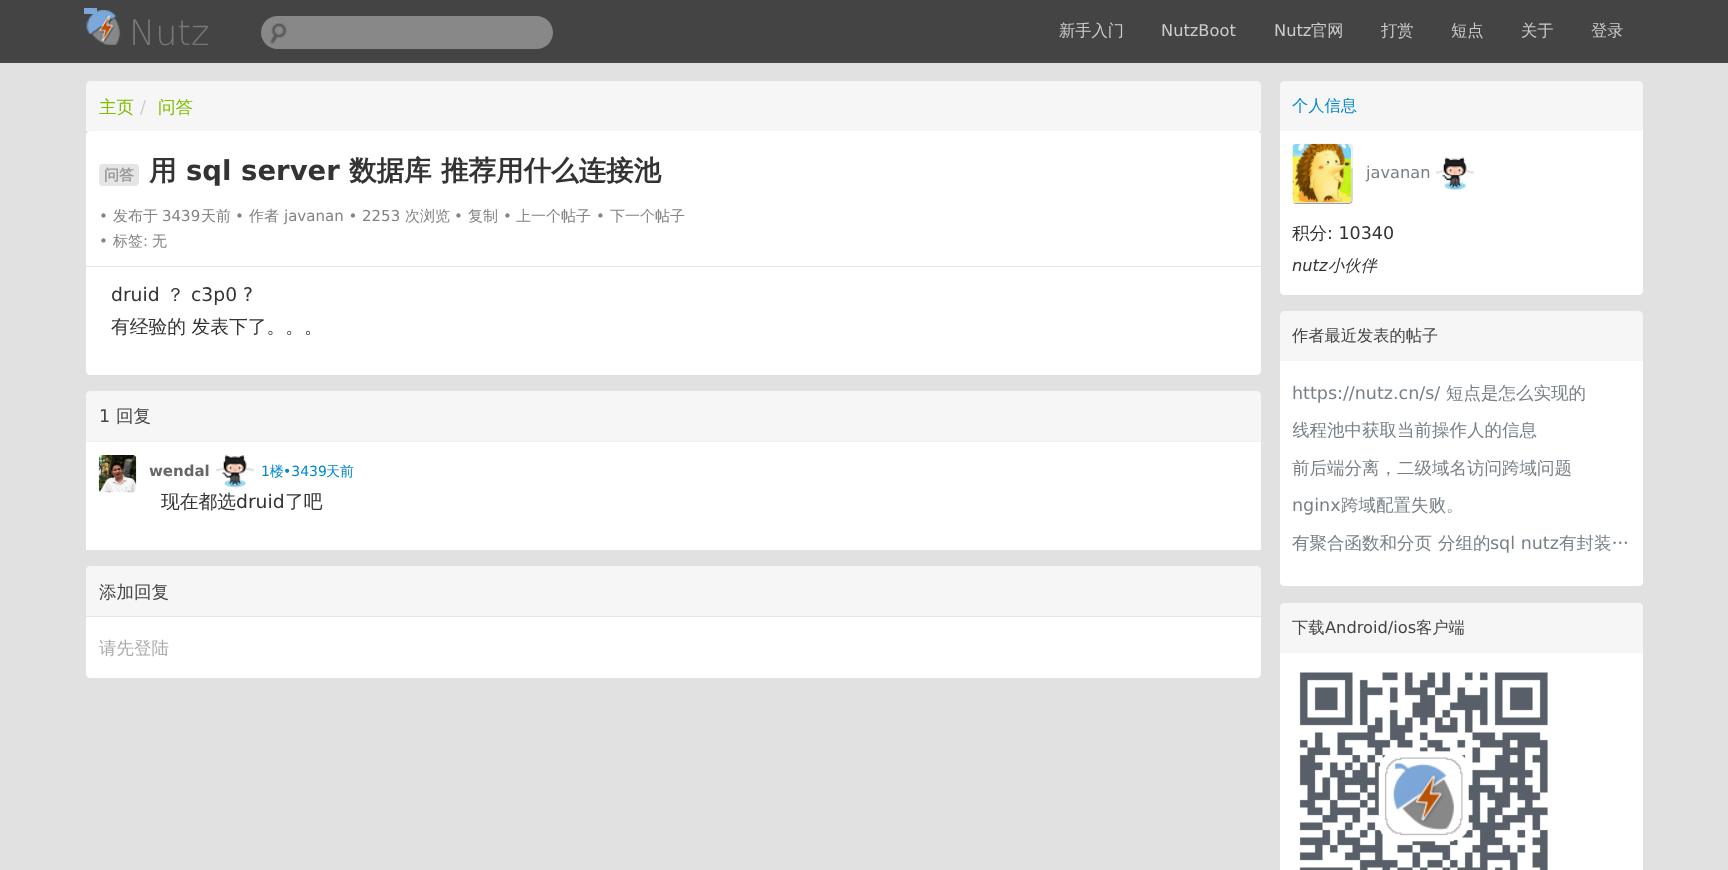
<svg xmlns="http://www.w3.org/2000/svg" width="1728" height="870">
	<defs>
		<clipPath id="clip1"><rect x="1293" y="411" width="245" height="38" /></clipPath>
	</defs>
	<rect width="100%" height="100%" fill="#E1E1E1" />
	<rect x="0" y="0" width="1728" height="63" fill="#444444" />
	<rect x="84" y="8" width="13" height="6" fill="#7DA7D9" />
	<image x="86" y="10" width="35" height="35" href="assets/img1.png" />
	<text x="129" y="45" font-family="DejaVu Sans" font-size="35" font-weight="200" fill="#777777">Nutz</text>
	<rect x="261" y="16" width="292" height="33" rx="16.5" fill="#888888" />
	<image x="270" y="23" width="17" height="21" href="assets/img2.png" />
	<text x="1059" y="36" font-family="WenQuanYi Zen Hei" font-size="16.25" font-weight="500" fill="#CCCCCC">新手入门</text>
	<g font-family="DejaVu Sans" font-size="16.25" fill="#CCCCCC">
		<text x="1161" y="36">NutzBoot</text>
		<text x="1274" y="36">Nutz</text>
	</g>
	<g font-family="WenQuanYi Zen Hei" font-size="16.25" font-weight="500" fill="#CCCCCC">
		<text x="1311" y="36">官网</text>
		<text x="1381" y="36">打赏</text>
		<text x="1451" y="36">短点</text>
		<text x="1521" y="36">关于</text>
		<text x="1591" y="36">登录</text>
	</g>
	<path d="M90 81H1257C1259 81 1261 83 1261 85V131H86V85C86 83 88 81 90 81Z" fill="#F6F6F6" />
	<text x="99" y="113" font-family="WenQuanYi Zen Hei" font-size="17.5" font-weight="500" fill="#80BD01">主页</text>
	<text x="140" y="113" font-family="DejaVu Sans" font-size="17.5" fill="#CCCCCC">/</text>
	<text x="158" y="113" font-family="WenQuanYi Zen Hei" font-size="17.5" font-weight="500" fill="#80BD01">问答</text>
	<path d="M90 131H1257C1259 131 1261 133 1261 135V266H86V135C86 133 88 131 90 131Z" fill="#FFFFFF" />
	<rect x="99" y="164" width="40" height="22" rx="4" fill="#E5E5E5" />
	<text x="104" y="180" font-family="WenQuanYi Zen Hei" font-size="15" font-weight="700" fill="#999999">问答</text>
	<text x="149" y="180" font-family="WenQuanYi Zen Hei" font-size="27.5" font-weight="700" fill="#333333">用</text>
	<text x="186" y="180" font-family="DejaVu Sans" font-size="27.5" font-weight="700" fill="#333333">sql server</text>
	<g font-family="WenQuanYi Zen Hei" font-size="27.5" font-weight="700" fill="#333333">
		<text x="349" y="180">数据库</text>
		<text x="441" y="180">推荐用什么连接池</text>
	</g>
	<text x="99" y="221" font-family="DejaVu Sans" font-size="15" fill="#838383">•</text>
	<text x="113" y="221" font-family="WenQuanYi Zen Hei" font-size="15" font-weight="500" fill="#838383">发布于</text>
	<text x="162" y="221" font-family="DejaVu Sans" font-size="15" fill="#838383">3439</text>
	<text x="201" y="221" font-family="WenQuanYi Zen Hei" font-size="15" font-weight="500" fill="#838383">天前</text>
	<text x="235" y="221" font-family="DejaVu Sans" font-size="15" fill="#838383">•</text>
	<text x="249" y="221" font-family="WenQuanYi Zen Hei" font-size="15" font-weight="500" fill="#838383">作者</text>
	<text x="284" y="221" font-family="DejaVu Sans" font-size="15" fill="#838383">javanan • 2253</text>
	<text x="405" y="221" font-family="WenQuanYi Zen Hei" font-size="15" font-weight="500" fill="#838383">次浏览</text>
	<text x="454" y="221" font-family="DejaVu Sans" font-size="15" fill="#838383">•</text>
	<text x="468" y="221" font-family="WenQuanYi Zen Hei" font-size="15" font-weight="500" fill="#838383">复制</text>
	<text x="503" y="221" font-family="DejaVu Sans" font-size="15" fill="#838383">•</text>
	<text x="516" y="221" font-family="WenQuanYi Zen Hei" font-size="15" font-weight="500" fill="#838383">上一个帖子</text>
	<text x="596" y="221" font-family="DejaVu Sans" font-size="15" fill="#838383">•</text>
	<text x="610" y="221" font-family="WenQuanYi Zen Hei" font-size="15" font-weight="500" fill="#838383">下一个帖子</text>
	<text x="99" y="246" font-family="DejaVu Sans" font-size="15" fill="#838383">•</text>
	<text x="113" y="246" font-family="WenQuanYi Zen Hei" font-size="15" font-weight="500" fill="#838383">标签</text>
	<text x="143" y="246" font-family="DejaVu Sans" font-size="15" fill="#838383">:</text>
	<text x="152" y="246" font-family="WenQuanYi Zen Hei" font-size="15" font-weight="500" fill="#838383">无</text>
	<path d="M86 266H1261V371C1261 373 1259 375 1257 375H90C88 375 86 373 86 371Z" fill="#FFFFFF" />
	<rect x="86" y="266" width="1175" height="1" fill="#E5E5E5" />
	<text x="111" y="301" font-family="DejaVu Sans" font-size="18.75" fill="#333333">druid</text>
	<text x="166" y="301" font-family="WenQuanYi Zen Hei" font-size="18.75" font-weight="500" fill="#333333">？</text>
	<text x="191" y="301" font-family="DejaVu Sans" font-size="18.75" fill="#333333">c3p0 ?</text>
	<text x="111" y="333" font-family="WenQuanYi Zen Hei" font-size="18.75" font-weight="500" fill="#333333">有经验的 发表下了。。。</text>
	<path d="M90 391H1257C1259 391 1261 393 1261 395V441H86V395C86 393 88 391 90 391Z" fill="#F6F6F6" />
	<text x="99" y="422" font-family="DejaVu Sans" font-size="17.5" fill="#444444">1</text>
	<text x="116" y="422" font-family="WenQuanYi Zen Hei" font-size="17.5" font-weight="500" fill="#444444">回复</text>
	<rect x="86" y="442" width="1175" height="108" fill="#FFFFFF" />
	<rect x="86" y="441" width="1175" height="1" fill="#F0F0F0" />
	<image x="98" y="455" width="39" height="38" href="assets/img3.png" />
	<text x="149" y="476" font-family="DejaVu Sans" font-size="15" font-weight="700" fill="#666666">wendal</text>
	<image x="216" y="455" width="38" height="33" href="assets/img4.png" />
	<text x="261" y="476" font-family="DejaVu Sans" font-size="14" fill="#0088CC">1</text>
	<text x="270" y="476" font-family="WenQuanYi Zen Hei" font-size="14" font-weight="500" fill="#0088CC">楼</text>
	<text x="283" y="476" font-family="DejaVu Sans" font-size="14" fill="#0088CC">•3439</text>
	<text x="326" y="476" font-family="WenQuanYi Zen Hei" font-size="14" font-weight="500" fill="#0088CC">天前</text>
	<text x="161" y="508" font-family="WenQuanYi Zen Hei" font-size="18.75" font-weight="500" fill="#333333">现在都选</text>
	<text x="236" y="508" font-family="DejaVu Sans" font-size="18.75" fill="#333333">druid</text>
	<text x="285" y="508" font-family="WenQuanYi Zen Hei" font-size="18.75" font-weight="500" fill="#333333">了吧</text>
	<path d="M90 566H1257C1259 566 1261 568 1261 570V616H86V570C86 568 88 566 90 566Z" fill="#F6F6F6" />
	<text x="99" y="598" font-family="WenQuanYi Zen Hei" font-size="17.5" font-weight="500" fill="#444444">添加回复</text>
	<path d="M86 616H1261V674C1261 676 1259 678 1257 678H90C88 678 86 676 86 674Z" fill="#FFFFFF" />
	<rect x="86" y="616" width="1175" height="1" fill="#E5E5E5" />
	<text x="99" y="654" font-family="WenQuanYi Zen Hei" font-size="17.5" font-weight="500" fill="#ABABAB">请先登陆</text>
	<path d="M1284 81H1639C1641 81 1643 83 1643 85V131H1280V85C1280 83 1282 81 1284 81Z" fill="#F6F6F6" />
	<text x="1292" y="111" font-family="WenQuanYi Zen Hei" font-size="16.25" font-weight="500" fill="#0088CC">个人信息</text>
	<path d="M1280 131H1643V291C1643 293 1641 295 1639 295H1284C1282 295 1280 293 1280 291Z" fill="#FFFFFF" />
	<image x="1292" y="143" width="61" height="61" href="assets/img5.png" />
	<text x="1366" y="178" font-family="DejaVu Sans" font-size="16.25" fill="#778087">javanan</text>
	<image x="1436" y="157" width="38" height="33" href="assets/img6.png" />
	<text x="1292" y="239" font-family="WenQuanYi Zen Hei" font-size="17.5" font-weight="500" fill="#333333">积分</text>
	<text x="1327" y="239" font-family="DejaVu Sans" font-size="17.5" fill="#333333">: 10340</text>
	<text x="1292" y="271" font-family="DejaVu Sans" font-size="16.25" font-style="italic" fill="#333333">nutz</text>
	<text x="1328" y="271" font-family="WenQuanYi Zen Hei" font-size="16.25" font-weight="500" font-style="italic" fill="#333333">小伙伴</text>
	<path d="M1284 311H1639C1641 311 1643 313 1643 315V361H1280V315C1280 313 1282 311 1284 311Z" fill="#F6F6F6" />
	<text x="1292" y="341" font-family="WenQuanYi Zen Hei" font-size="16.25" font-weight="500" fill="#444444">作者最近发表的帖子</text>
	<path d="M1280 361H1643V582C1643 584 1641 586 1639 586H1284C1282 586 1280 584 1280 582Z" fill="#FFFFFF" />
	<text x="1292" y="399" font-family="DejaVu Sans" font-size="17.5" fill="#778087">https://nutz.cn/s/</text>
	<text x="1446" y="399" font-family="WenQuanYi Zen Hei" font-size="17.5" font-weight="500" fill="#778087">短点是怎么实现的</text>
	<g clip-path="url(#clip1)">
		<text x="1292" y="436" font-family="WenQuanYi Zen Hei" font-size="17.5" font-weight="500" fill="#778087">线程池中获取当前操作人的信息</text>
	</g>
	<text x="1292" y="474" font-family="WenQuanYi Zen Hei" font-size="17.5" font-weight="500" fill="#778087">前后端分离，二级域名访问跨域问题</text>
	<text x="1292" y="511" font-family="DejaVu Sans" font-size="17.5" fill="#778087">nginx</text>
	<g font-family="WenQuanYi Zen Hei" font-size="17.5" font-weight="500" fill="#778087">
		<text x="1341" y="511">跨域配置失败。</text>
		<text x="1292" y="549">有聚合函数和分页</text>
		<text x="1438" y="549">分组的</text>
	</g>
	<text x="1490" y="549" font-family="DejaVu Sans" font-size="17.5" fill="#778087">sql nutz</text>
	<text x="1559" y="549" font-family="WenQuanYi Zen Hei" font-size="17.5" font-weight="500" fill="#778087">有封装…</text>
	<path d="M1284 603H1639C1641 603 1643 605 1643 607V653H1280V607C1280 605 1282 603 1284 603Z" fill="#F6F6F6" />
	<text x="1292" y="633" font-family="WenQuanYi Zen Hei" font-size="16.25" font-weight="500" fill="#444444">下载</text>
	<text x="1325" y="633" font-family="DejaVu Sans" font-size="16.25" fill="#444444">Android/ios</text>
	<text x="1416" y="633" font-family="WenQuanYi Zen Hei" font-size="16.25" font-weight="500" fill="#444444">客户端</text>
	<rect x="1280" y="653" width="363" height="217" fill="#FFFFFF" />
	<image x="1299" y="672" width="249" height="198" href="assets/img7.png" />
</svg>
